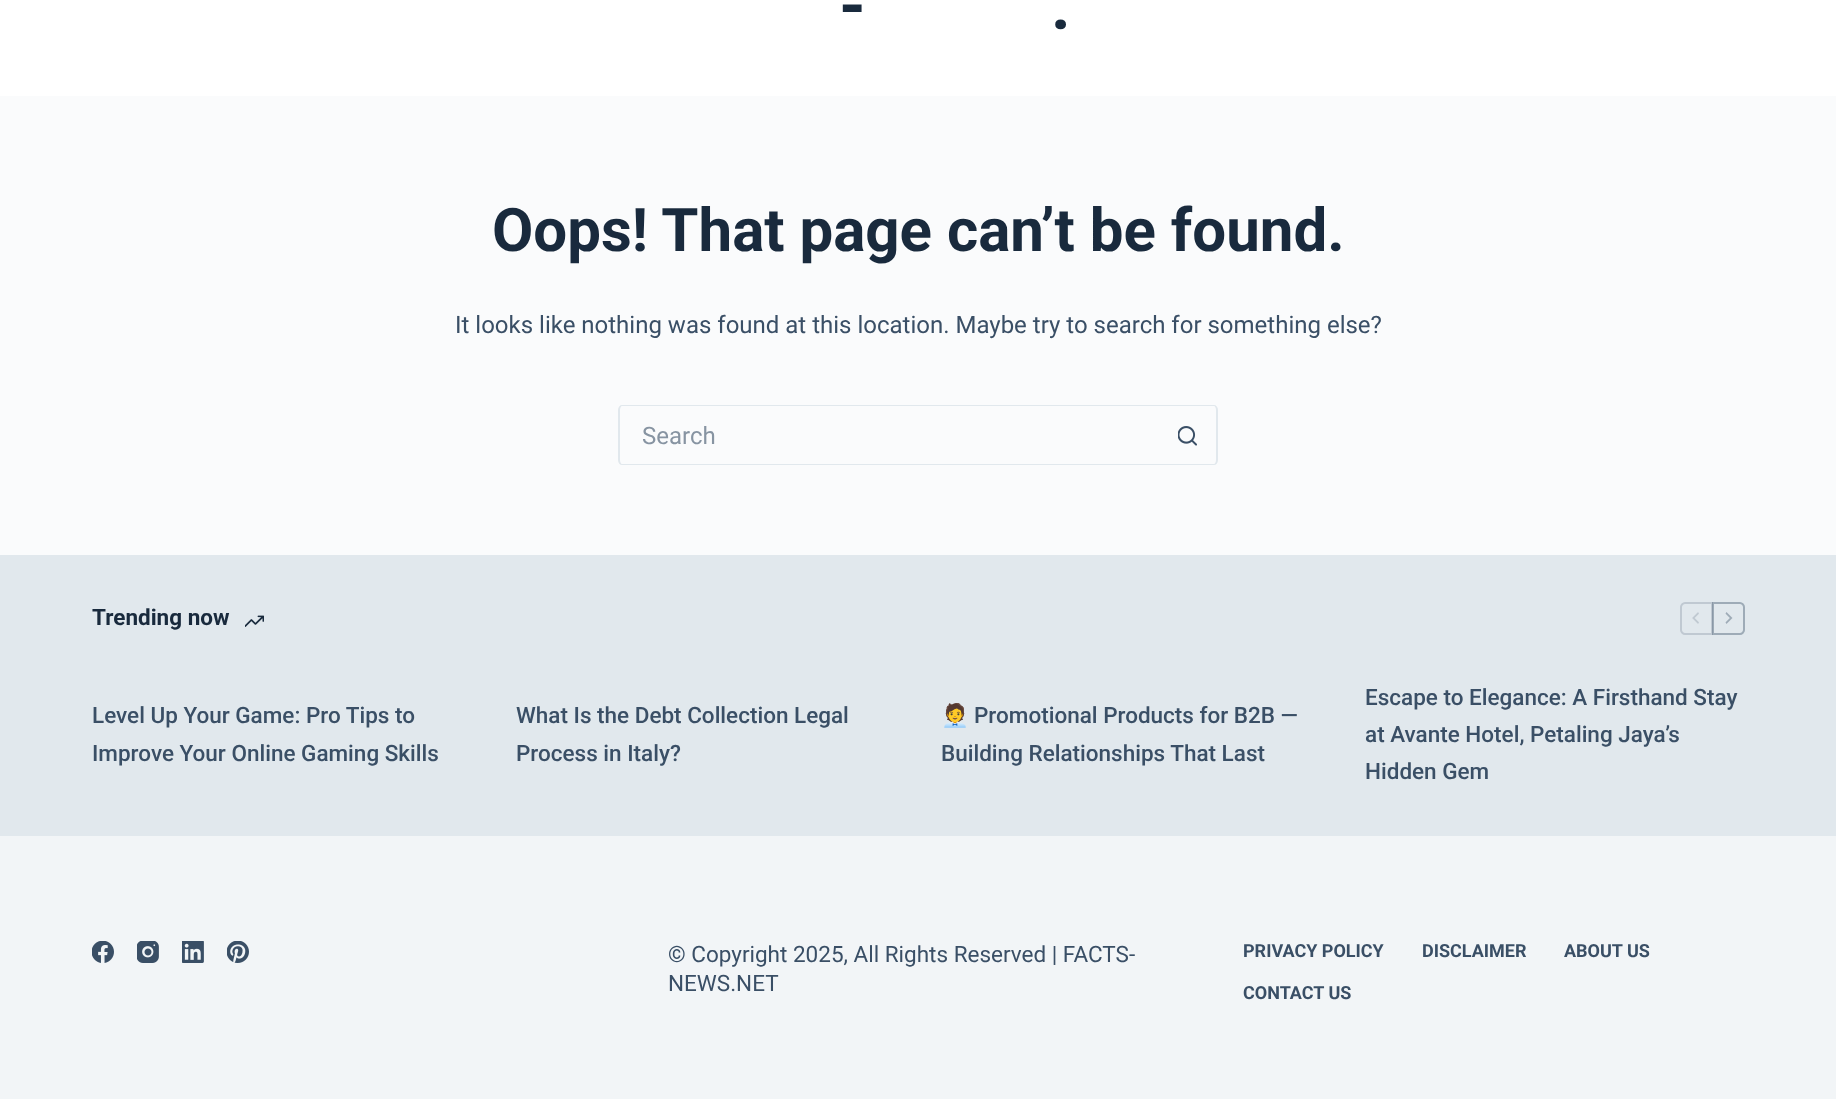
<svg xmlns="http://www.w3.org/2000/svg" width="1836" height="1099">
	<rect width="100%" height="100%" fill="#FAFBFC" />
	<rect x="0" y="0" width="1836" height="96" fill="#FFFFFF" />
	<g font-family="Roboto" font-size="68" font-weight="700" fill="#192A3D">
		<text x="839" y="29">-</text>
		<text x="1051" y="29">.</text>
	</g>
	<text x="492" y="251" font-family="Roboto" font-size="60" font-weight="700" fill="#192A3D">Oops! That page can’t be found.</text>
	<text x="455" y="333" font-family="Roboto" font-size="24" fill="#3A4F66">It looks like nothing was found at this location. Maybe try to search for something else?</text>
	<path d="M622 405H1158V465H622C620 465 618 463 618 460V410C618 407 620 405 622 405ZM622 406H1158V464H622C621 464 620 462 620 460V410C620 408 621 406 622 406Z" fill="#E1E8ED" fill-rule="evenodd" />
	<text x="642" y="444" font-family="Roboto" font-size="24" fill="#8794A2">Search</text>
	<path d="M1158 405H1214C1216 405 1218 407 1218 410V460C1218 463 1216 465 1214 465H1158ZM1158 406H1214C1215 406 1216 408 1216 410V460C1216 462 1215 464 1214 464H1158Z" fill="#E1E8ED" fill-rule="evenodd" />
	<image x="1178" y="426" width="19" height="20" href="assets/img1.png" />
	<rect x="0" y="555" width="1836" height="281" fill="#E1E8ED" />
	<text x="92" y="625" font-family="Roboto" font-size="22.5" font-weight="700" fill="#192A3D">Trending now</text>
	<image x="245" y="615" width="19" height="12" href="assets/img2.png" />
	<path d="M1685 603H1712V634H1685C1683 634 1681 632 1681 630V607C1681 605 1683 603 1685 603Z" fill="none" stroke="#C0C9D2" stroke-width="2" />
	<image x="1692" y="612" width="7" height="12" href="assets/img3.png" />
	<path d="M1713 603H1740C1742 603 1744 605 1744 607V630C1744 632 1742 634 1740 634H1713Z" fill="none" stroke="#3A4F66" stroke-opacity="0.4" stroke-width="2" />
	<image x="1725" y="612" width="8" height="12" href="assets/img4.png" />
	<g font-family="Roboto" font-size="22.5" font-weight="500" fill="#3A4F66">
		<text x="92" y="723">Level Up Your Game: Pro Tips to</text>
		<text x="92" y="761">Improve Your Online Gaming Skills</text>
		<text x="516" y="723">What Is the Debt Collection Legal</text>
		<text x="516" y="761">Process in Italy?</text>
	</g>
	<text x="941" y="723" font-family="Noto Color Emoji" font-size="22.5" fill="#3A4F66">🧑‍💼</text>
	<g font-family="Roboto" font-size="22.5" font-weight="500" fill="#3A4F66">
		<text x="974" y="723">Promotional Products for B2B —</text>
		<text x="941" y="761">Building Relationships That Last</text>
		<text x="1365" y="705">Escape to Elegance: A Firsthand Stay</text>
		<text x="1365" y="742">at Avante Hotel, Petaling Jaya’s</text>
		<text x="1365" y="779">Hidden Gem</text>
	</g>
	<rect x="0" y="836" width="1836" height="263" fill="#F2F5F7" />
	<image x="92" y="941" width="22" height="22" href="assets/img5.png" />
	<image x="137" y="941" width="22" height="22" href="assets/img6.png" />
	<image x="182" y="941" width="22" height="22" href="assets/img7.png" />
	<image x="227" y="941" width="22" height="22" href="assets/img8.png" />
	<g font-family="Roboto" font-size="22.5" fill="#3A4F66">
		<text x="668" y="962">© Copyright 2025, All Rights Reserved | FACTS-</text>
		<text x="668" y="991">NEWS.NET</text>
	</g>
	<g font-family="Roboto" font-size="18" font-weight="700" fill="#3A4F66">
		<text x="1243" y="957">PRIVACY POLICY</text>
		<text x="1422" y="957">DISCLAIMER</text>
		<text x="1564" y="957">ABOUT US</text>
		<text x="1243" y="999">CONTACT US</text>
	</g>
</svg>
